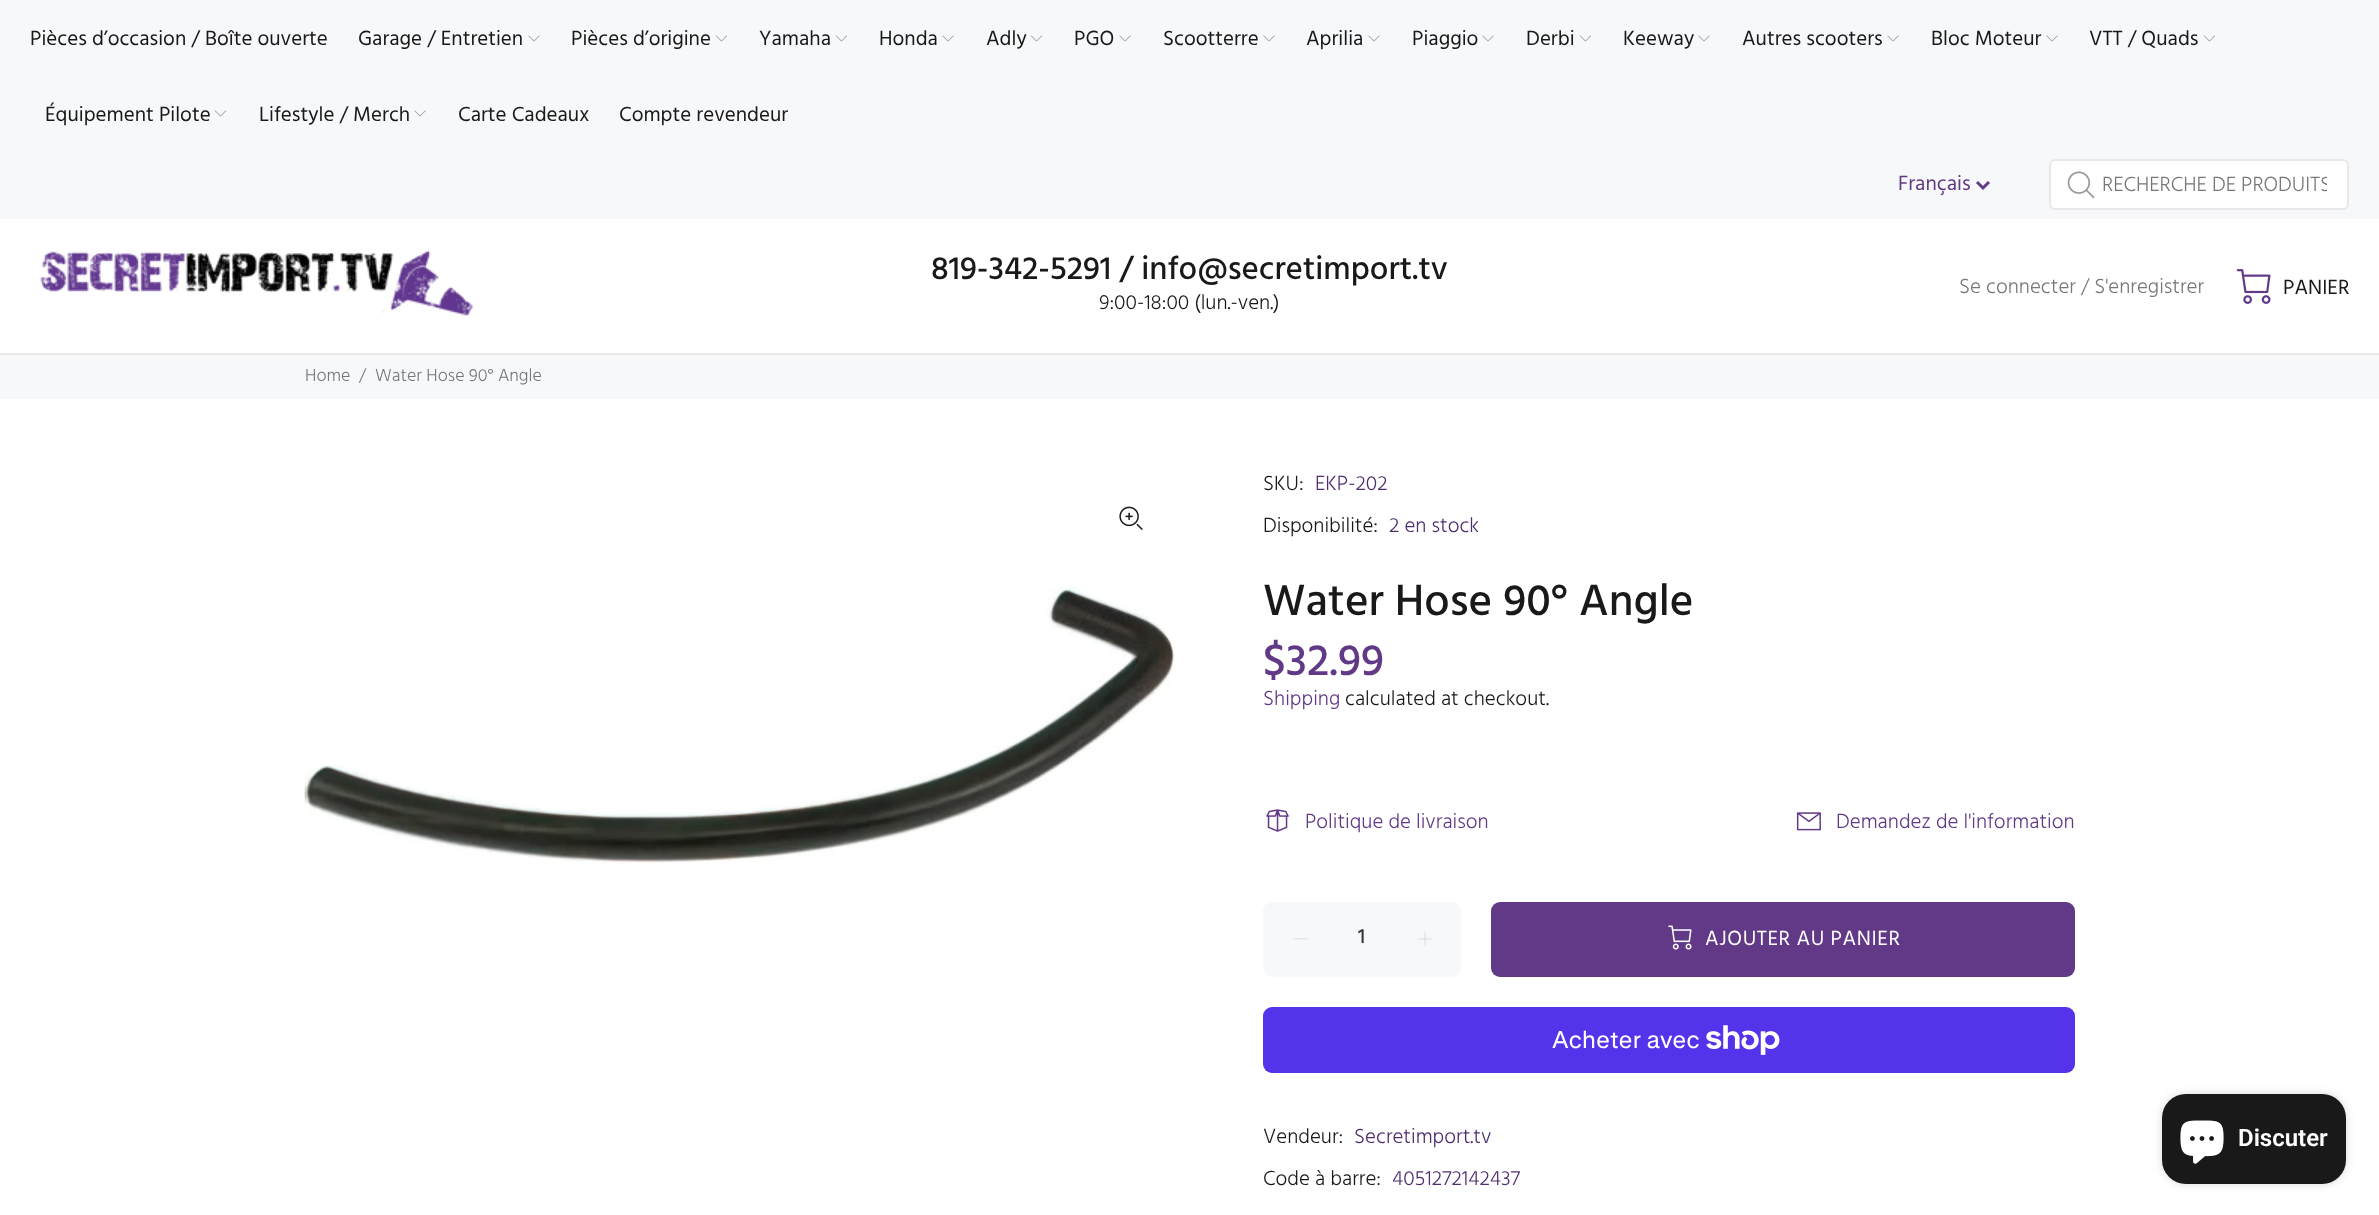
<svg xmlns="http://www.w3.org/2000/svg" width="2379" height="1215">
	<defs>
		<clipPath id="clip1"><rect x="2102" y="168" width="225" height="35" /></clipPath>
	</defs>
	<rect width="100%" height="100%" fill="#FFFFFF" />
	<rect x="0" y="0" width="2379" height="219" fill="#F7F8FA" />
	<g font-family="Hind" font-size="21" fill="#191919">
		<text x="30" y="45">Pièces d’occasion / Boîte ouverte</text>
		<text x="358" y="45">Garage / Entretien</text>
	</g>
	<image x="528" y="35" width="12" height="7" href="assets/img1.png" />
	<text x="571" y="45" font-family="Hind" font-size="21" fill="#191919">Pièces d’origine</text>
	<image x="715" y="35" width="13" height="7" href="assets/img2.png" />
	<text x="759" y="45" font-family="Hind" font-size="21" fill="#191919">Yamaha</text>
	<image x="835" y="35" width="13" height="7" href="assets/img2.png" />
	<text x="879" y="45" font-family="Hind" font-size="21" fill="#191919">Honda</text>
	<image x="942" y="35" width="12" height="7" href="assets/img1.png" />
	<text x="986" y="45" font-family="Hind" font-size="21" fill="#191919">Adly</text>
	<image x="1030" y="35" width="13" height="7" href="assets/img2.png" />
	<text x="1074" y="45" font-family="Hind" font-size="21" fill="#191919">PGO</text>
	<image x="1119" y="35" width="12" height="7" href="assets/img1.png" />
	<text x="1163" y="45" font-family="Hind" font-size="21" fill="#191919">Scootterre</text>
	<image x="1263" y="35" width="12" height="7" href="assets/img1.png" />
	<text x="1306" y="45" font-family="Hind" font-size="21" fill="#191919">Aprilia</text>
	<image x="1368" y="35" width="12" height="7" href="assets/img1.png" />
	<text x="1412" y="45" font-family="Hind" font-size="21" fill="#191919">Piaggio</text>
	<image x="1482" y="35" width="12" height="7" href="assets/img1.png" />
	<text x="1526" y="45" font-family="Hind" font-size="21" fill="#191919">Derbi</text>
	<image x="1579" y="35" width="13" height="7" href="assets/img2.png" />
	<text x="1623" y="45" font-family="Hind" font-size="21" fill="#191919">Keeway</text>
	<image x="1698" y="35" width="12" height="7" href="assets/img1.png" />
	<text x="1742" y="45" font-family="Hind" font-size="21" fill="#191919">Autres scooters</text>
	<image x="1887" y="35" width="12" height="7" href="assets/img1.png" />
	<text x="1931" y="45" font-family="Hind" font-size="21" fill="#191919">Bloc Moteur</text>
	<image x="2046" y="35" width="12" height="7" href="assets/img1.png" />
	<text x="2089" y="45" font-family="Hind" font-size="21" fill="#191919">VTT / Quads</text>
	<image x="2203" y="35" width="13" height="7" href="assets/img2.png" />
	<text x="45" y="121" font-family="Hind" font-size="21" fill="#191919">Équipement Pilote</text>
	<image x="214" y="110" width="13" height="7" href="assets/img2.png" />
	<text x="259" y="121" font-family="Hind" font-size="21" fill="#191919">Lifestyle / Merch</text>
	<image x="414" y="110" width="12" height="7" href="assets/img1.png" />
	<g font-family="Hind" font-size="21" fill="#191919">
		<text x="458" y="121">Carte Cadeaux</text>
		<text x="619" y="121">Compte revendeur</text>
	</g>
	<path d="M1977 182L1983 188L1989 182" fill="none" stroke="#623987" stroke-width="3" />
	<text x="1898" y="190" font-family="Hind" font-size="21" fill="#623987">Français</text>
	<rect x="2050" y="160" width="298" height="49" rx="5" fill="#FFFFFF" stroke="#E9E7E7" stroke-width="2" />
	<image x="2067" y="171" width="28" height="28" href="assets/img3.png" />
	<g clip-path="url(#clip1)">
		<text x="2102" y="191" font-family="Hind" font-size="21" font-weight="300" fill="#777777">RECHERCHE DE PRODUITS</text>
	</g>
	<rect x="0" y="353" width="2379" height="2" fill="#E9E7E7" />
	<image x="40" y="250" width="433" height="66" href="assets/img4.png" />
	<text x="931" y="279" font-family="Hind" font-size="33" font-weight="500" fill="#191919">819-342-5291 / info@secretimport.tv</text>
	<text x="1099" y="309" font-family="Hind" font-size="21" font-weight="300" fill="#191919">9:00-18:00 (lun.-ven.)</text>
	<text x="1959" y="293" font-family="Hind" font-size="21" font-weight="300" fill="#777777">Se connecter / S'enregistrer</text>
	<image x="2236" y="269" width="35" height="35" href="assets/img5.png" />
	<text x="2283" y="294" font-family="Hind" font-size="21" fill="#191919">PANIER</text>
	<rect x="0" y="355" width="2379" height="44" fill="#F7F8FA" />
	<g font-family="Hind" font-size="18" font-weight="300" fill="#777777">
		<text x="305" y="381">Home</text>
		<text x="359" y="381">/</text>
		<text x="375" y="381">Water Hose 90° Angle</text>
	</g>
	<image x="1119" y="506" width="24" height="24" href="assets/img6.png" />
	<image x="304" y="586" width="870" height="278" href="assets/img7.png" />
	<text x="1263" y="490" font-family="Hind" font-size="21" font-weight="300" fill="#191919">SKU:</text>
	<text x="1315" y="490" font-family="Hind" font-size="21" font-weight="300" fill="#502E6E">EKP-202</text>
	<text x="1263" y="532" font-family="Hind" font-size="21" font-weight="300" fill="#191919">Disponibilité:</text>
	<text x="1389" y="532" font-family="Hind" font-size="21" font-weight="300" fill="#502E6E">2 en stock</text>
	<text x="1263" y="615" font-family="Hind" font-size="45" font-weight="500" fill="#191919">Water Hose 90° Angle</text>
	<text x="1263" y="675" font-family="Hind" font-size="45" font-weight="500" fill="#623987">$32.99</text>
	<text x="1263" y="705" font-family="Hind" font-size="21" font-weight="300" fill="#623987">Shipping</text>
	<text x="1345" y="705" font-family="Hind" font-size="21" font-weight="300" fill="#191919">calculated at checkout.</text>
	<image x="1266" y="809" width="23" height="23" href="assets/img8.png" />
	<text x="1305" y="828" font-family="Hind" font-size="21" font-weight="300" fill="#623987">Politique de livraison</text>
	<image x="1796" y="812" width="25" height="19" href="assets/img9.png" />
	<text x="1836" y="828" font-family="Hind" font-size="21" font-weight="300" fill="#623987">Demandez de l'information</text>
	<rect x="1263" y="902" width="198" height="75" rx="9" fill="#F7F8FA" />
	<image x="1294" y="938" width="14" height="2" href="assets/img10.png" />
	<text x="1358" y="943" font-family="Hind" font-size="21" font-weight="500" fill="#333333">1</text>
	<image x="1418" y="932" width="14" height="14" href="assets/img11.png" />
	<rect x="1491" y="902" width="584" height="75" rx="9" fill="#623987" />
	<image x="1668" y="925" width="24" height="25" href="assets/img12.png" />
	<text x="1705" y="945" font-family="Hind" font-size="21" letter-spacing="0.6" fill="#FFFFFF">AJOUTER AU PANIER</text>
	<rect x="1263" y="1007" width="812" height="66" rx="9" fill="#5433EB" />
	<text x="1552" y="1048" font-family="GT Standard" font-size="24" fill="#FFFFFF">Acheter avec</text>
	<image x="1706" y="1025" width="74" height="30" href="assets/img13.png" />
	<text x="1263" y="1143" font-family="Hind" font-size="21" font-weight="300" fill="#191919">Vendeur:</text>
	<text x="1354" y="1143" font-family="Hind" font-size="21" font-weight="300" fill="#502E6E">Secretimport.tv</text>
	<text x="1263" y="1185" font-family="Hind" font-size="21" font-weight="300" fill="#191919">Code à barre:</text>
	<text x="1392" y="1185" font-family="Hind" font-size="21" font-weight="300" fill="#502E6E">4051272142437</text>
	<rect x="2162" y="1094" width="184" height="90" rx="24" fill="#000000" fill-opacity="0.15" filter="blur(4px)" />
	<rect x="2162" y="1094" width="184" height="90" rx="24" fill="#191919" />
	<image x="2180" y="1120" width="44" height="44" href="assets/img14.png" />
	<text x="2238" y="1146" font-family="Roboto" font-size="24" font-weight="600" fill="#FFFFFF">Discuter</text>
</svg>
